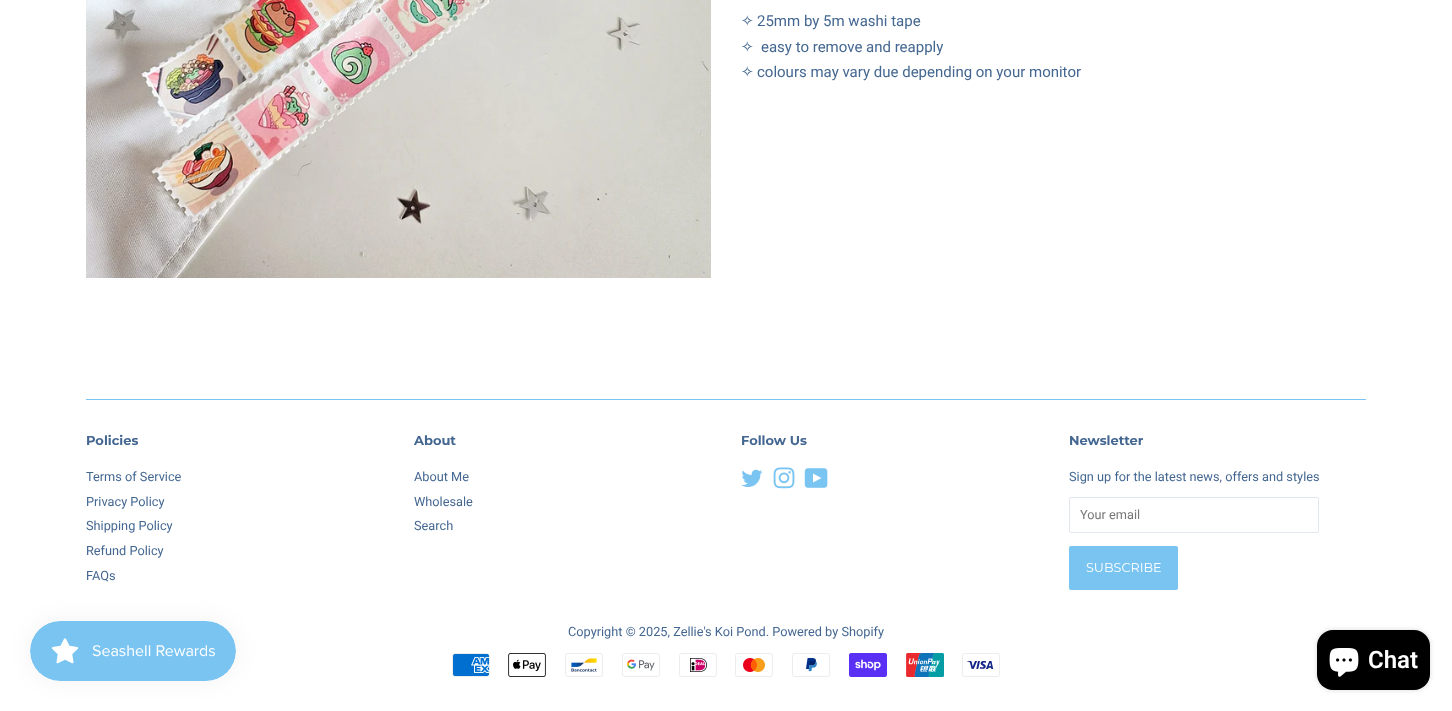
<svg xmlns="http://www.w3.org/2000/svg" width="1452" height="711">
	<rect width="100%" height="100%" fill="#FFFFFF" />
	<image x="86" y="0" width="625" height="278" href="assets/img1.png" />
	<text x="741" y="26" font-family="DejaVu Sans" font-size="15" fill="#446791">✧</text>
	<text x="757" y="26" font-family="Roboto" font-size="15" fill="#446791">25mm by 5m washi tape</text>
	<text x="741" y="52" font-family="DejaVu Sans" font-size="15" fill="#446791">✧</text>
	<text x="761" y="52" font-family="Roboto" font-size="15" fill="#446791">easy to remove and reapply</text>
	<text x="741" y="77" font-family="DejaVu Sans" font-size="15" fill="#446791">✧</text>
	<text x="757" y="77" font-family="Roboto" font-size="15" fill="#446791">colours may vary due depending on your monitor</text>
	<rect x="86" y="399" width="1280" height="1" fill="#7AC4F2" />
	<text x="86" y="445" font-family="Montserrat" font-size="13" font-weight="700" fill="#446791">Policies</text>
	<g font-family="Roboto" font-size="12.75" fill="#446791">
		<text x="86" y="481">Terms of Service</text>
		<text x="86" y="506">Privacy Policy</text>
		<text x="86" y="530">Shipping Policy</text>
		<text x="86" y="555">Refund Policy</text>
		<text x="86" y="580">FAQs</text>
	</g>
	<text x="414" y="445" font-family="Montserrat" font-size="13" font-weight="700" fill="#446791">About</text>
	<g font-family="Roboto" font-size="12.75" fill="#446791">
		<text x="414" y="481">About Me</text>
		<text x="414" y="506">Wholesale</text>
		<text x="414" y="530">Search</text>
	</g>
	<text x="741" y="445" font-family="Montserrat" font-size="13" font-weight="700" fill="#446791">Follow Us</text>
	<image x="741" y="469" width="22" height="18" href="assets/img2.png" />
	<image x="773" y="467" width="22" height="22" href="assets/img3.png" />
	<image x="804" y="468" width="24" height="20" href="assets/img4.png" />
	<text x="1069" y="445" font-family="Montserrat" font-size="13" font-weight="700" fill="#446791">Newsletter</text>
	<text x="1069" y="481" font-family="Roboto" font-size="12.75" fill="#446791">Sign up for the latest news, offers and styles</text>
	<rect x="1069.5" y="497.5" width="249" height="35" rx="1.5" fill="none" stroke="#E3E8EF" />
	<text x="1080" y="519" font-family="Roboto" font-size="12.75" fill="#757575">Your email</text>
	<rect x="1069" y="546" width="109" height="44" rx="2" fill="#7AC4F2" />
	<text x="1086" y="572" font-family="Montserrat" font-size="12.75" fill="#FFFFFF">SUBSCRIBE</text>
	<text x="568" y="636" font-family="Roboto" font-size="12.75" fill="#446791">Copyright © 2025, Zellie's Koi Pond. Powered by Shopify</text>
	<image x="452" y="653" width="38" height="24" href="assets/img5.png" />
	<image x="508" y="653" width="38" height="24" href="assets/img6.png" />
	<image x="565" y="653" width="38" height="24" href="assets/img7.png" />
	<image x="622" y="653" width="38" height="24" href="assets/img8.png" />
	<image x="679" y="653" width="38" height="24" href="assets/img9.png" />
	<image x="735" y="653" width="38" height="24" href="assets/img10.png" />
	<image x="792" y="653" width="38" height="24" href="assets/img11.png" />
	<image x="849" y="653" width="38" height="24" href="assets/img12.png" />
	<image x="906" y="653" width="38" height="24" href="assets/img13.png" />
	<image x="962" y="653" width="38" height="24" href="assets/img14.png" />
	<rect x="30" y="621" width="206" height="60" rx="30" fill="#000000" fill-opacity="0.05" filter="blur(12.5px)" />
	<image x="30" y="621" width="206" height="60" href="assets/img15.png" />
	<rect x="1317" y="630" width="113" height="60" rx="16" fill="#000000" fill-opacity="0.15" filter="blur(2.5px)" />
	<rect x="1317" y="630" width="113" height="60" rx="16" fill="#000000" />
	<image x="1329" y="648" width="30" height="29" href="assets/img16.png" />
	<text x="1368" y="668" font-family="Roboto" font-size="24" font-weight="600" fill="#FFFFFF">Chat</text>
</svg>
